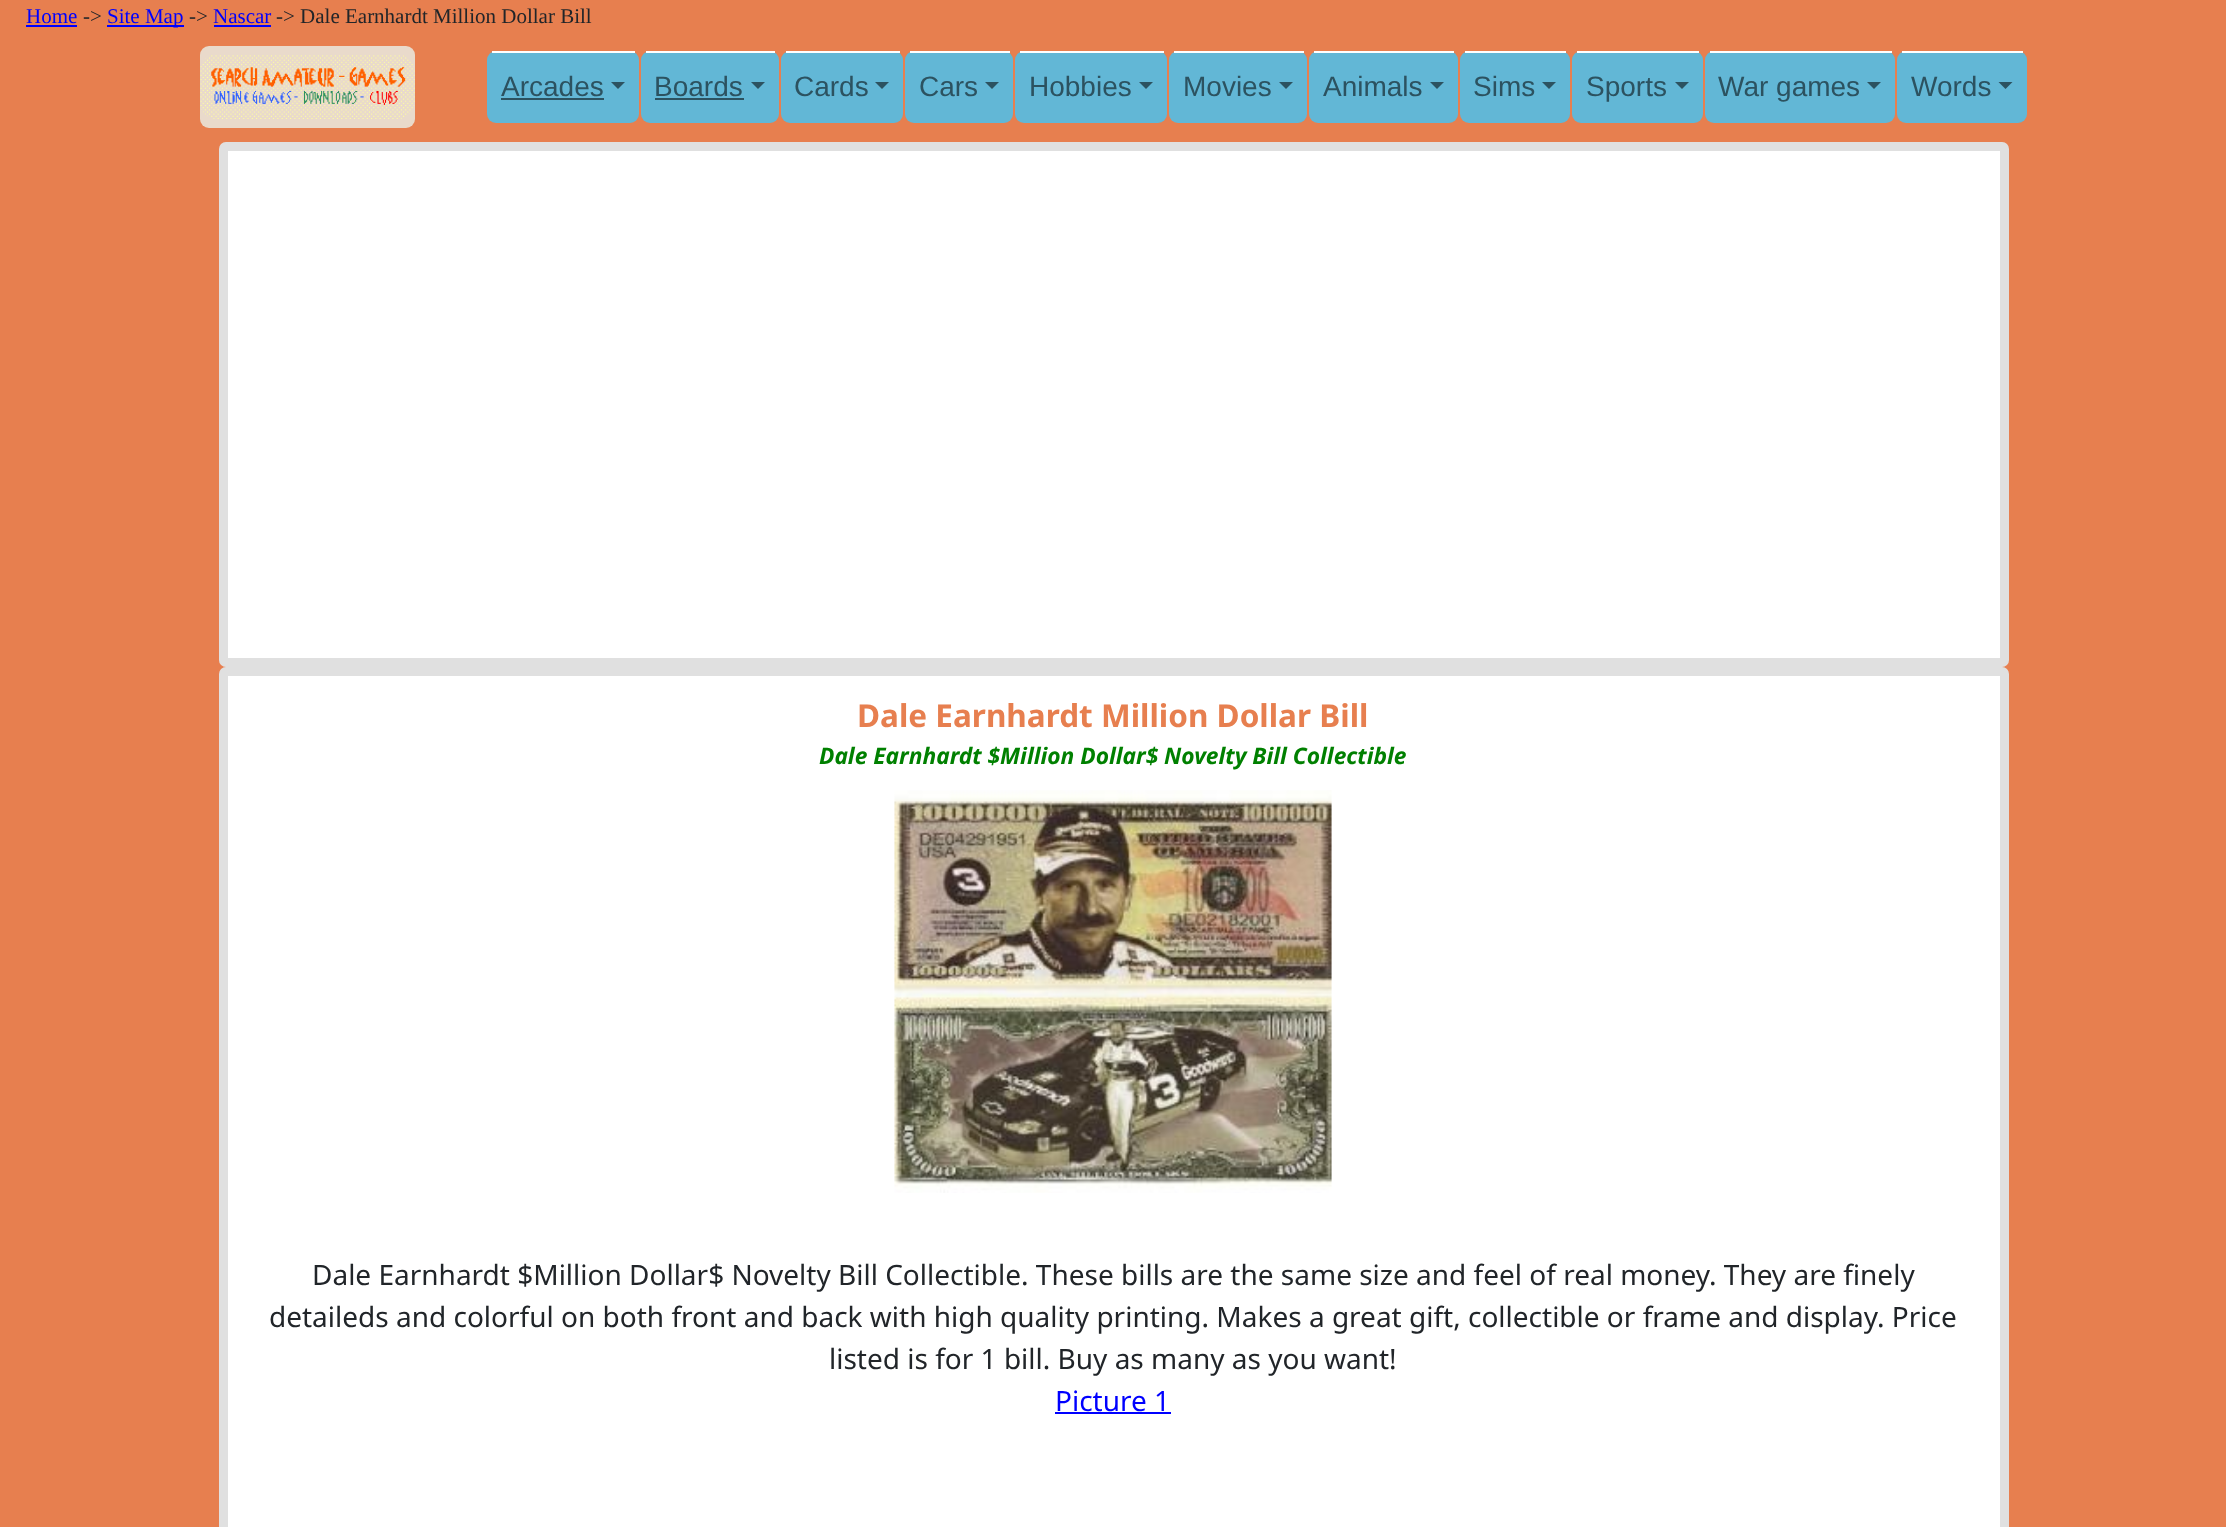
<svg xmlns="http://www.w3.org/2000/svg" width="2226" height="1527">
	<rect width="100%" height="100%" fill="#E77F4F" />
	<text x="26" y="23" font-family="Liberation Serif" font-size="21" fill="#0000FF">Home</text>
	<rect x="26" y="25" width="51" height="2" fill="#0000FF" />
	<text x="83" y="23" font-family="Liberation Serif" font-size="21" fill="#212529">-&gt;</text>
	<rect x="107" y="25" width="77" height="2" fill="#0000FF" />
	<text x="107" y="23" font-family="Liberation Serif" font-size="21" fill="#0000FF">Site Map</text>
	<text x="189" y="23" font-family="Liberation Serif" font-size="21" fill="#212529">-&gt;</text>
	<text x="213" y="23" font-family="Liberation Serif" font-size="21" fill="#0000FF">Nascar</text>
	<rect x="214" y="25" width="57" height="2" fill="#0000FF" />
	<text x="276" y="23" font-family="Liberation Serif" font-size="21" fill="#212529">-&gt; Dale Earnhardt Million Dollar Bill</text>
	<rect x="200" y="46" width="215" height="82" rx="9" fill="#E9DACB" />
	<image x="200" y="55" width="215" height="64" href="assets/img1.png" />
	<rect x="487" y="51" width="152" height="72" rx="9" fill="#62B7D6" />
	<rect x="492" y="51" width="143" height="2" fill="#FFFFFF" />
	<text x="501" y="96" font-family="Liberation Sans" font-size="28" fill="#2C5260">Arcades</text>
	<rect x="501" y="98" width="103" height="2" fill="#2C5260" />
	<path d="M611 82H625L618 89Z" fill="#2C5260" />
	<rect x="641" y="51" width="138" height="72" rx="9" fill="#62B7D6" />
	<rect x="646" y="51" width="129" height="2" fill="#FFFFFF" />
	<text x="654" y="96" font-family="Liberation Sans" font-size="28" fill="#2C5260">Boards</text>
	<rect x="655" y="98" width="89" height="2" fill="#2C5260" />
	<path d="M751 82H765L758 89Z" fill="#2C5260" />
	<rect x="781" y="51" width="122" height="72" rx="9" fill="#62B7D6" />
	<rect x="786" y="51" width="114" height="2" fill="#FFFFFF" />
	<text x="794" y="96" font-family="Liberation Sans" font-size="28" fill="#2C5260">Cards</text>
	<path d="M875 82H889L882 89Z" fill="#2C5260" />
	<rect x="905" y="51" width="108" height="72" rx="9" fill="#62B7D6" />
	<rect x="910" y="51" width="100" height="2" fill="#FFFFFF" />
	<text x="919" y="96" font-family="Liberation Sans" font-size="28" fill="#2C5260">Cars</text>
	<path d="M985 82H999L992 89Z" fill="#2C5260" />
	<rect x="1015" y="51" width="152" height="72" rx="9" fill="#62B7D6" />
	<rect x="1020" y="51" width="144" height="2" fill="#FFFFFF" />
	<text x="1029" y="96" font-family="Liberation Sans" font-size="28" fill="#2C5260">Hobbies</text>
	<path d="M1139 82H1153L1146 89Z" fill="#2C5260" />
	<rect x="1169" y="51" width="138" height="72" rx="9" fill="#62B7D6" />
	<rect x="1174" y="51" width="130" height="2" fill="#FFFFFF" />
	<text x="1183" y="96" font-family="Liberation Sans" font-size="28" fill="#2C5260">Movies</text>
	<path d="M1279 82H1293L1286 89Z" fill="#2C5260" />
	<rect x="1309" y="51" width="149" height="72" rx="9" fill="#62B7D6" />
	<rect x="1314" y="51" width="140" height="2" fill="#FFFFFF" />
	<text x="1323" y="96" font-family="Liberation Sans" font-size="28" fill="#2C5260">Animals</text>
	<path d="M1430 82H1444L1437 89Z" fill="#2C5260" />
	<rect x="1460" y="51" width="110" height="72" rx="9" fill="#62B7D6" />
	<rect x="1465" y="51" width="101" height="2" fill="#FFFFFF" />
	<text x="1473" y="96" font-family="Liberation Sans" font-size="28" fill="#2C5260">Sims</text>
	<path d="M1542 82H1556L1549 89Z" fill="#2C5260" />
	<rect x="1572" y="51" width="131" height="72" rx="9" fill="#62B7D6" />
	<rect x="1577" y="51" width="122" height="2" fill="#FFFFFF" />
	<text x="1586" y="96" font-family="Liberation Sans" font-size="28" fill="#2C5260">Sports</text>
	<path d="M1675 82H1689L1682 89Z" fill="#2C5260" />
	<rect x="1705" y="51" width="190" height="72" rx="9" fill="#62B7D6" />
	<rect x="1710" y="51" width="182" height="2" fill="#FFFFFF" />
	<text x="1718" y="96" font-family="Liberation Sans" font-size="28" fill="#2C5260">War games</text>
	<path d="M1867 82H1881L1874 89Z" fill="#2C5260" />
	<rect x="1897" y="51" width="130" height="72" rx="9" fill="#62B7D6" />
	<rect x="1902" y="51" width="121" height="2" fill="#FFFFFF" />
	<text x="1911" y="96" font-family="Liberation Sans" font-size="28" fill="#2C5260">Words</text>
	<path d="M1998.5 82H2012.5L2005.5 89Z" fill="#2C5260" />
	<rect x="219" y="142" width="1790" height="525" rx="7" fill="#FFFFFF" />
	<rect x="223.5" y="146.5" width="1781" height="516" rx="2.5" fill="none" stroke="#000000" stroke-opacity="0.12" stroke-width="9" />
	<rect x="219" y="667" width="1790" height="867" rx="7" fill="#FFFFFF" />
	<rect x="223.5" y="671.5" width="1781" height="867" rx="2.5" fill="none" stroke="#000000" stroke-opacity="0.12" stroke-width="9" />
	<text x="857" y="727" font-family="Noto Sans" font-size="31.5" font-weight="700" fill="#E77F4F">Dale Earnhardt Million Dollar Bill</text>
	<text x="819" y="764" font-family="Noto Sans" font-size="22.75" font-weight="700" font-style="italic" fill="#008000">Dale Earnhardt $Million Dollar$ Novelty Bill Collectible</text>
	<image x="894" y="790" width="438" height="403" href="assets/img2.png" />
	<g font-family="Noto Sans" font-size="28" fill="#212529">
		<text x="312" y="1285">Dale Earnhardt $Million Dollar$ Novelty Bill Collectible. These bills are the same size and feel of real money. They are finely</text>
		<text x="269" y="1327">detaileds and colorful on both front and back with high quality printing. Makes a great gift, collectible or frame and display. Price</text>
		<text x="829" y="1369">listed is for 1 bill. Buy as many as you want!</text>
	</g>
	<text x="1055" y="1411" font-family="Noto Sans" font-size="28" fill="#0000FF">Picture 1</text>
	<rect x="1055" y="1412" width="116" height="2" fill="#0000FF" />
</svg>
